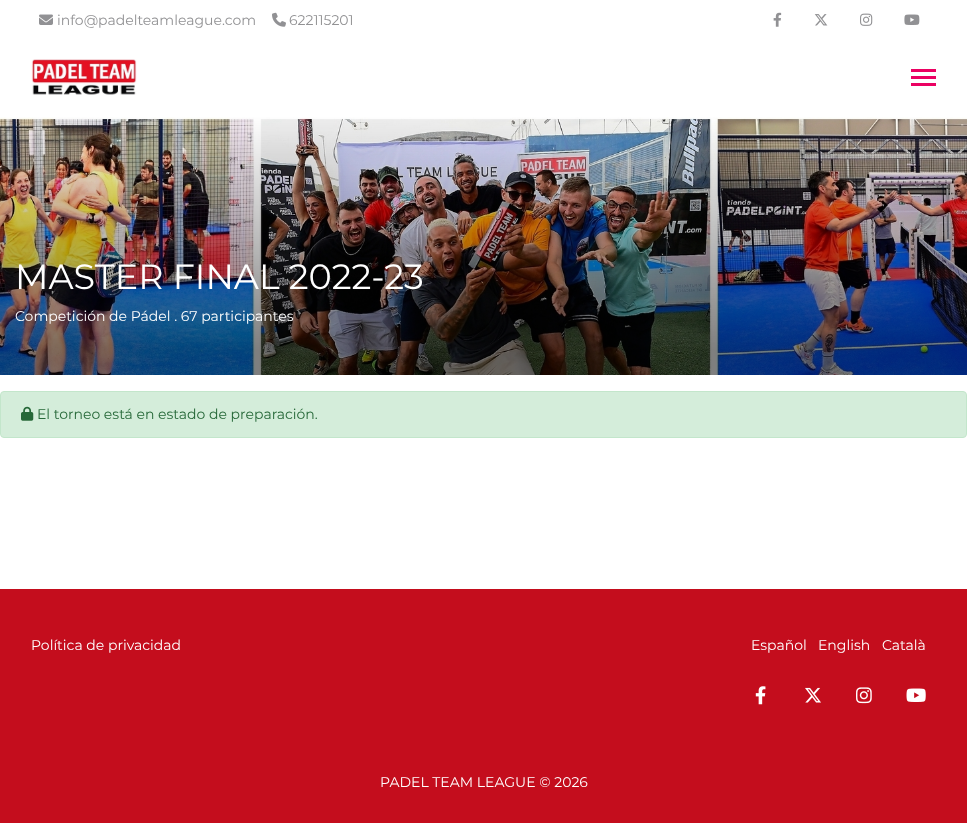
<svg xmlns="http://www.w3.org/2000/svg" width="967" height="823">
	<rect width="100%" height="100%" fill="#FFFFFF" />
	<image x="39" y="14" width="14" height="11" href="assets/img1.png" />
	<text x="57" y="25" font-family="Montserrat" font-size="14" font-weight="100" fill="#929294">info@padelteamleague.com</text>
	<image x="272" y="12" width="14" height="15" href="assets/img2.png" />
	<text x="289" y="25" font-family="Montserrat" font-size="14" font-weight="100" fill="#929294">622115201</text>
	<image x="773" y="12" width="9" height="15" href="assets/img3.png" />
	<image x="814" y="14" width="14" height="12" href="assets/img4.png" />
	<image x="860" y="13" width="13" height="13" href="assets/img5.png" />
	<image x="904" y="14" width="16" height="11" href="assets/img6.png" />
	<image x="31" y="59" width="106" height="36" href="assets/img7.png" />
	<rect x="911" y="69" width="25" height="3" fill="#EB0162" />
	<rect x="911" y="76" width="25" height="3" fill="#EB0162" />
	<rect x="911" y="83" width="25" height="3" fill="#EB0162" />
	<image x="0" y="117" width="967" height="258" href="assets/img8.png" />
	<text x="15" y="289" font-family="Montserrat" font-size="35" font-weight="100" fill="#FFFFFF">MASTER FINAL 2022-23</text>
	<text x="15" y="321" font-family="Montserrat" font-size="14" font-weight="100" fill="#FFFFFF">Competición de Pádel . 67 participantes</text>
	<rect x="0.5" y="391.5" width="966" height="46" rx="3.5" fill="#D4EDDA" stroke="#C3E6CB" />
	<image x="21" y="406" width="13" height="15" href="assets/img9.png" />
	<text x="37" y="419" font-family="Montserrat" font-size="14" font-weight="100" fill="#266838">El torneo está en estado de preparación.</text>
	<rect x="0" y="589" width="967" height="234" fill="#C40D1D" />
	<g font-family="Montserrat" font-size="14" font-weight="100" fill="#FFFFFF">
		<text x="31" y="650">Política de privacidad</text>
		<text x="751" y="650">Español</text>
		<text x="818" y="650">English</text>
		<text x="882" y="650">Català</text>
	</g>
	<image x="755" y="686" width="11" height="19" href="assets/img10.png" />
	<image x="805" y="687" width="16" height="16" href="assets/img11.png" />
	<image x="856" y="687" width="16" height="17" href="assets/img12.png" />
	<image x="906" y="688" width="20" height="14" href="assets/img13.png" />
	<text x="380" y="787" font-family="Montserrat" font-size="14" font-weight="100" fill="#FFFFFF">PADEL TEAM LEAGUE © 2026</text>
</svg>
